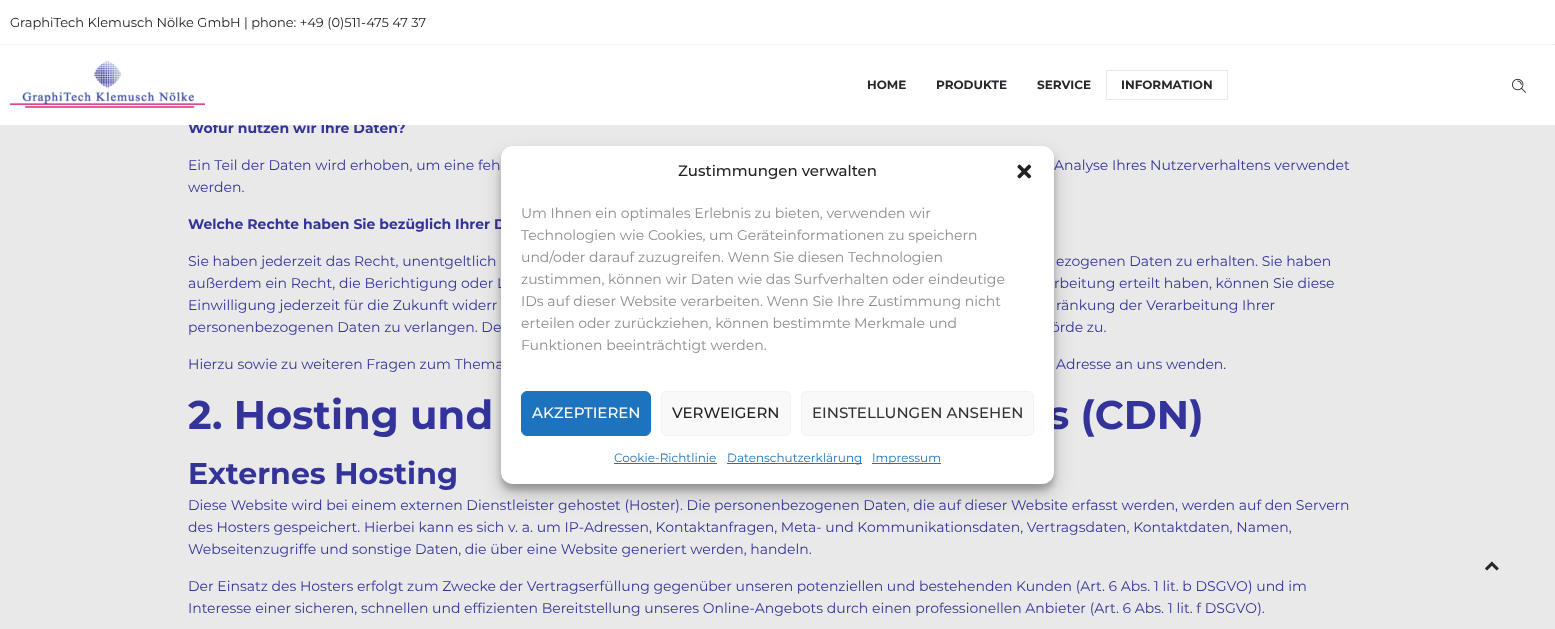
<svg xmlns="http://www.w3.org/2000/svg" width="1555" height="629">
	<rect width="100%" height="100%" fill="#E9E9E9" />
	<text x="188" y="133" font-family="Montserrat" font-size="14" font-weight="700" fill="#333399">Wofür nutzen wir Ihre Daten?</text>
	<rect x="0" y="0" width="1555" height="125" fill="#FFFFFF" />
	<path d="M0 44.5H1555" fill="none" stroke="#EAE9EA" stroke-dasharray="1 1" />
	<text x="10" y="27" font-family="Montserrat" font-size="13" fill="#1B1B1B">GraphiTech Klemusch Nölke GmbH | phone: +49 (0)511-475 47 37</text>
	<image x="10" y="61" width="195" height="47" href="assets/img1.png" />
	<g font-family="Montserrat" font-size="12" font-weight="700" fill="#28262B">
		<text x="867" y="89">HOME</text>
		<text x="936" y="89">PRODUKTE</text>
		<text x="1037" y="89">SERVICE</text>
	</g>
	<rect x="1106.5" y="70.5" width="121" height="29" fill="none" stroke="#EAE9EA" />
	<text x="1121" y="89" font-family="Montserrat" font-size="12" font-weight="700" fill="#28262B">INFORMATION</text>
	<image x="1512" y="78" width="14" height="15" href="assets/img2.png" />
	<g font-family="Montserrat" font-size="14" fill="#333399">
		<text x="188" y="170">Ein Teil der Daten wird erhoben, um eine feh</text>
		<text x="1054" y="170">Analyse Ihres Nutzerverhaltens verwendet</text>
		<text x="188" y="192">werden.</text>
	</g>
	<text x="188" y="229" font-family="Montserrat" font-size="14" font-weight="700" fill="#333399">Welche Rechte haben Sie bezüglich Ihrer D</text>
	<g font-family="Montserrat" font-size="14" fill="#333399">
		<text x="188" y="266">Sie haben jederzeit das Recht, unentgeltlich</text>
		<text x="1056" y="266">ezogenen Daten zu erhalten. Sie haben</text>
		<text x="188" y="288">außerdem ein Recht, die Berichtigung oder L</text>
		<text x="1054" y="288">rbeitung erteilt haben, können Sie diese</text>
		<text x="188" y="310">Einwilligung jederzeit für die Zukunft widerr</text>
		<text x="1056" y="310">ränkung der Verarbeitung Ihrer</text>
		<text x="188" y="332">personenbezogenen Daten zu verlangen. De</text>
		<text x="1051" y="332">örde zu.</text>
		<text x="188" y="369">Hierzu sowie zu weiteren Fragen zum Thema</text>
		<text x="1056" y="369">Adresse an uns wenden.</text>
	</g>
	<g font-family="Montserrat" font-size="40" font-weight="700" fill="#333399">
		<text x="188" y="429">2. Hosting und</text>
		<text x="1048" y="429">s (CDN)</text>
	</g>
	<text x="188" y="484" font-family="Montserrat" font-size="30" font-weight="700" fill="#333399">Externes Hosting</text>
	<g font-family="Montserrat" font-size="14" fill="#333399">
		<text x="188" y="510">Diese Website wird bei einem externen Dienstleister gehostet (Hoster). Die personenbezogenen Daten, die auf dieser Website erfasst werden, werden auf den Servern</text>
		<text x="188" y="532">des Hosters gespeichert. Hierbei kann es sich v. a. um IP-Adressen, Kontaktanfragen, Meta- und Kommunikationsdaten, Vertragsdaten, Kontaktdaten, Namen,</text>
		<text x="188" y="554">Webseitenzugriffe und sonstige Daten, die über eine Website generiert werden, handeln.</text>
		<text x="188" y="591">Der Einsatz des Hosters erfolgt zum Zwecke der Vertragserfüllung gegenüber unseren potenziellen und bestehenden Kunden (Art. 6 Abs. 1 lit. b DSGVO) und im</text>
		<text x="188" y="613">Interesse einer sicheren, schnellen und effizienten Bereitstellung unseres Online-Angebots durch einen professionellen Anbieter (Art. 6 Abs. 1 lit. f DSGVO).</text>
	</g>
	<image x="1485" y="561" width="14" height="10" href="assets/img3.png" />
	<rect x="501" y="152" width="553" height="338" rx="12" fill="#000000" fill-opacity="0.23" filter="blur(3px)" />
	<rect x="501" y="156" width="553" height="338" rx="12" fill="#000000" fill-opacity="0.19" filter="blur(10px)" />
	<rect x="501" y="146" width="553" height="338" rx="12" fill="#FFFFFF" />
	<text x="678" y="176" font-family="Montserrat" font-size="15" font-weight="500" fill="#222222">Zustimmungen verwalten</text>
	<image x="1017" y="164" width="15" height="15" href="assets/img4.png" />
	<g font-family="Montserrat" font-size="14" fill="#8C8C8C">
		<text x="521" y="218">Um Ihnen ein optimales Erlebnis zu bieten, verwenden wir</text>
		<text x="521" y="240">Technologien wie Cookies, um Geräteinformationen zu speichern</text>
		<text x="521" y="262">und/oder darauf zuzugreifen. Wenn Sie diesen Technologien</text>
		<text x="521" y="284">zustimmen, können wir Daten wie das Surfverhalten oder eindeutige</text>
		<text x="521" y="306">IDs auf dieser Website verarbeiten. Wenn Sie Ihre Zustimmung nicht</text>
		<text x="521" y="328">erteilen oder zurückziehen, können bestimmte Merkmale und</text>
		<text x="521" y="350">Funktionen beeinträchtigt werden.</text>
	</g>
	<rect x="521.5" y="391.5" width="129" height="44" rx="5.5" fill="#1E73BE" stroke="#1E73BE" />
	<text x="532" y="418" font-family="Montserrat" font-size="15" font-weight="500" fill="#FFFFFF">AKZEPTIEREN</text>
	<rect x="661.5" y="391.5" width="129" height="44" rx="5.5" fill="#F9F9F9" stroke="#F2F2F2" />
	<text x="672" y="418" font-family="Montserrat" font-size="15" font-weight="500" fill="#222222">VERWEIGERN</text>
	<rect x="801.5" y="391.5" width="232" height="44" rx="5.5" fill="#F9F9F9" stroke="#F2F2F2" />
	<text x="812" y="418" font-family="Montserrat" font-size="15" font-weight="500" fill="#333333">EINSTELLUNGEN ANSEHEN</text>
	<text x="614" y="462" font-family="Montserrat" font-size="12" fill="#1E73BE">Cookie-Richtlinie</text>
	<rect x="614" y="463" width="103" height="1" fill="#1E73BE" />
	<rect x="727" y="463" width="135" height="1" fill="#1E73BE" />
	<text x="727" y="462" font-family="Montserrat" font-size="12" fill="#1E73BE">Datenschutzerklärung</text>
	<rect x="872" y="463" width="69" height="1" fill="#1E73BE" />
	<text x="872" y="462" font-family="Montserrat" font-size="12" fill="#1E73BE">Impressum</text>
</svg>
